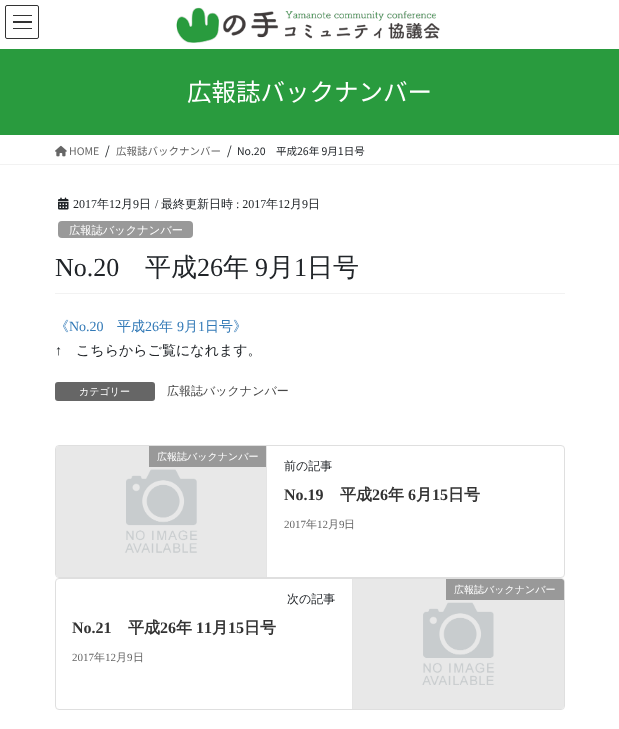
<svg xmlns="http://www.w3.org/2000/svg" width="619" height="729">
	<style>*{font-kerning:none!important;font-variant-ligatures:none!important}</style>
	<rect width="100%" height="100%" fill="#FFFFFF" />
	<rect x="13" y="15" width="19" height="1" fill="#333333" />
	<rect x="13" y="21" width="19" height="2" fill="#333333" />
	<rect x="13" y="28" width="19" height="1" fill="#333333" />
	<rect x="5.5" y="5.5" width="33" height="33" rx="1.5" fill="none" stroke="#333333" />
	<image x="176" y="7" width="264" height="36" href="assets/img1.png" />
	<rect x="0" y="49" width="619" height="86" fill="#299B3E" />
	<text x="187" y="101" font-family="Noto Sans JP" font-size="24.5" fill="#FFFFFF">広報誌バックナンバー</text>
	<rect x="0" y="164" width="619" height="1" fill="#F2F2F2" />
	<image x="55" y="145" width="12" height="12" href="assets/img2.png" />
	<text x="69" y="155" font-family="Noto Sans JP" font-size="10.5" fill="#666666">HOME</text>
	<text x="105" y="155" font-family="Noto Sans JP" font-size="12" fill="#212529">/</text>
	<text x="116" y="155" font-family="Noto Sans JP" font-size="10.5" fill="#666666">広報誌バックナンバー</text>
	<text x="227" y="155" font-family="Noto Sans JP" font-size="12" fill="#212529">/</text>
	<text x="237" y="155" font-family="Noto Sans JP" font-size="10.5" fill="#212529">No.20　平成26年 9月1日号</text>
	<rect x="55" y="293" width="510" height="1" fill="#F2F2F2" />
	<image x="58" y="197" width="11" height="13" href="assets/img3.png" />
	<text x="73" y="208" font-family="Liberation Serif" font-size="12" fill="#212529">2017</text>
	<text x="97" y="208" font-family="WenQuanYi Zen Hei" font-size="12" font-weight="500" fill="#212529">年</text>
	<text x="109" y="208" font-family="Liberation Serif" font-size="12" fill="#212529">12</text>
	<text x="121" y="208" font-family="WenQuanYi Zen Hei" font-size="12" font-weight="500" fill="#212529">月</text>
	<text x="133" y="208" font-family="Liberation Serif" font-size="12" fill="#212529">9</text>
	<text x="139" y="208" font-family="WenQuanYi Zen Hei" font-size="12" font-weight="500" fill="#212529">日</text>
	<text x="155" y="208" font-family="Liberation Serif" font-size="12" fill="#212529">/</text>
	<text x="161" y="208" font-family="WenQuanYi Zen Hei" font-size="12" font-weight="500" fill="#212529">最終更新日時</text>
	<text x="236" y="208" font-family="Liberation Serif" font-size="12" fill="#212529">: 2017</text>
	<text x="266" y="208" font-family="WenQuanYi Zen Hei" font-size="12" font-weight="500" fill="#212529">年</text>
	<text x="278" y="208" font-family="Liberation Serif" font-size="12" fill="#212529">12</text>
	<text x="290" y="208" font-family="WenQuanYi Zen Hei" font-size="12" font-weight="500" fill="#212529">月</text>
	<text x="302" y="208" font-family="Liberation Serif" font-size="12" fill="#212529">9</text>
	<text x="308" y="208" font-family="WenQuanYi Zen Hei" font-size="12" font-weight="500" fill="#212529">日</text>
	<rect x="58" y="221" width="135" height="17" rx="4" fill="#999999" />
	<text x="69" y="234" font-family="WenQuanYi Zen Hei" font-size="11.25" font-weight="500" fill="#FFFFFF">広報誌バックナンバー</text>
	<text x="55" y="276" font-family="Liberation Serif" font-size="26" fill="#212529">No.20</text>
	<text x="145" y="276" font-family="WenQuanYi Zen Hei" font-size="26" font-weight="500" fill="#212529">平成</text>
	<text x="197" y="276" font-family="Liberation Serif" font-size="26" fill="#212529">26</text>
	<text x="223" y="276" font-family="WenQuanYi Zen Hei" font-size="26" font-weight="500" fill="#212529">年</text>
	<text x="255" y="276" font-family="Liberation Serif" font-size="26" fill="#212529">9</text>
	<text x="268" y="276" font-family="WenQuanYi Zen Hei" font-size="26" font-weight="500" fill="#212529">月</text>
	<text x="294" y="276" font-family="Liberation Serif" font-size="26" fill="#212529">1</text>
	<text x="307" y="276" font-family="WenQuanYi Zen Hei" font-size="26" font-weight="500" fill="#212529">日号</text>
	<text x="55" y="331" font-family="WenQuanYi Zen Hei" font-size="14" font-weight="500" fill="#337AB7">《</text>
	<text x="69" y="331" font-family="Liberation Serif" font-size="14" fill="#337AB7">No.20</text>
	<text x="117" y="331" font-family="WenQuanYi Zen Hei" font-size="14" font-weight="500" fill="#337AB7">平成</text>
	<text x="145" y="331" font-family="Liberation Serif" font-size="14" fill="#337AB7">26</text>
	<text x="159" y="331" font-family="WenQuanYi Zen Hei" font-size="14" font-weight="500" fill="#337AB7">年</text>
	<text x="177" y="331" font-family="Liberation Serif" font-size="14" fill="#337AB7">9</text>
	<text x="184" y="331" font-family="WenQuanYi Zen Hei" font-size="14" font-weight="500" fill="#337AB7">月</text>
	<text x="198" y="331" font-family="Liberation Serif" font-size="14" fill="#337AB7">1</text>
	<text x="205" y="331" font-family="WenQuanYi Zen Hei" font-size="14" font-weight="500" fill="#337AB7">日号》</text>
	<text x="55" y="355" font-family="Liberation Serif" font-size="14" fill="#212529">↑</text>
	<text x="76" y="355" font-family="WenQuanYi Zen Hei" font-size="14" font-weight="500" fill="#212529">こちらからご覧になれます。</text>
	<rect x="55" y="382" width="100" height="19" rx="3" fill="#666666" />
	<text x="79" y="395" font-family="WenQuanYi Zen Hei" font-size="10" font-weight="500" fill="#FFFFFF">カテゴリー</text>
	<text x="167" y="395" font-family="WenQuanYi Zen Hei" font-size="12" font-weight="500" fill="#464646">広報誌バックナンバー</text>
	<rect x="55.5" y="445.5" width="509" height="132" rx="3.5" fill="none" stroke="#DFDFDF" />
	<image x="56" y="446" width="210" height="131" href="assets/img4.png" />
	<rect x="266" y="446" width="1" height="131" fill="#E5E5E5" />
	<rect x="149" y="446" width="117" height="21" fill="#999999" />
	<text x="157" y="460" font-family="WenQuanYi Zen Hei" font-size="10" font-weight="500" fill="#FFFFFF">広報誌バックナンバー</text>
	<text x="284" y="470" font-family="WenQuanYi Zen Hei" font-size="12" font-weight="500" fill="#212529">前の記事</text>
	<text x="284" y="500" font-family="Liberation Serif" font-size="16" font-weight="700" fill="#333333">No.19</text>
	<text x="340" y="500" font-family="WenQuanYi Zen Hei" font-size="16" font-weight="700" fill="#333333">平成</text>
	<text x="372" y="500" font-family="Liberation Serif" font-size="16" font-weight="700" fill="#333333">26</text>
	<text x="388" y="500" font-family="WenQuanYi Zen Hei" font-size="16" font-weight="700" fill="#333333">年</text>
	<text x="408" y="500" font-family="Liberation Serif" font-size="16" font-weight="700" fill="#333333">6</text>
	<text x="416" y="500" font-family="WenQuanYi Zen Hei" font-size="16" font-weight="700" fill="#333333">月</text>
	<text x="432" y="500" font-family="Liberation Serif" font-size="16" font-weight="700" fill="#333333">15</text>
	<text x="448" y="500" font-family="WenQuanYi Zen Hei" font-size="16" font-weight="700" fill="#333333">日号</text>
	<text x="284" y="528" font-family="Liberation Serif" font-size="11" fill="#666666">2017</text>
	<text x="306" y="528" font-family="WenQuanYi Zen Hei" font-size="11" font-weight="500" fill="#666666">年</text>
	<text x="317" y="528" font-family="Liberation Serif" font-size="11" fill="#666666">12</text>
	<text x="328" y="528" font-family="WenQuanYi Zen Hei" font-size="11" font-weight="500" fill="#666666">月</text>
	<text x="339" y="528" font-family="Liberation Serif" font-size="11" fill="#666666">9</text>
	<text x="344" y="528" font-family="WenQuanYi Zen Hei" font-size="11" font-weight="500" fill="#666666">日</text>
	<rect x="55.5" y="578.5" width="509" height="131" rx="3.5" fill="none" stroke="#DFDFDF" />
	<image x="353" y="579" width="211" height="130" href="assets/img5.png" />
	<rect x="352" y="579" width="1" height="130" fill="#E5E5E5" />
	<path d="M446 579H561.5C563 579 564 580 564 581.5V600H446Z" fill="#999999" />
	<text x="454" y="593" font-family="WenQuanYi Zen Hei" font-size="10" font-weight="500" fill="#FFFFFF">広報誌バックナンバー</text>
	<text x="287" y="603" font-family="WenQuanYi Zen Hei" font-size="12" font-weight="500" fill="#212529">次の記事</text>
	<text x="72" y="633" font-family="Liberation Serif" font-size="16" font-weight="700" fill="#333333">No.21</text>
	<text x="128" y="633" font-family="WenQuanYi Zen Hei" font-size="16" font-weight="700" fill="#333333">平成</text>
	<text x="160" y="633" font-family="Liberation Serif" font-size="16" font-weight="700" fill="#333333">26</text>
	<text x="176" y="633" font-family="WenQuanYi Zen Hei" font-size="16" font-weight="700" fill="#333333">年</text>
	<text x="196" y="633" font-family="Liberation Serif" font-size="16" font-weight="700" fill="#333333">11</text>
	<text x="212" y="633" font-family="WenQuanYi Zen Hei" font-size="16" font-weight="700" fill="#333333">月</text>
	<text x="228" y="633" font-family="Liberation Serif" font-size="16" font-weight="700" fill="#333333">15</text>
	<text x="244" y="633" font-family="WenQuanYi Zen Hei" font-size="16" font-weight="700" fill="#333333">日号</text>
	<text x="72" y="661" font-family="Liberation Serif" font-size="11" fill="#666666">2017</text>
	<text x="94" y="661" font-family="WenQuanYi Zen Hei" font-size="11" font-weight="500" fill="#666666">年</text>
	<text x="105" y="661" font-family="Liberation Serif" font-size="11" fill="#666666">12</text>
	<text x="116" y="661" font-family="WenQuanYi Zen Hei" font-size="11" font-weight="500" fill="#666666">月</text>
	<text x="127" y="661" font-family="Liberation Serif" font-size="11" fill="#666666">9</text>
	<text x="133" y="661" font-family="WenQuanYi Zen Hei" font-size="11" font-weight="500" fill="#666666">日</text>
</svg>
